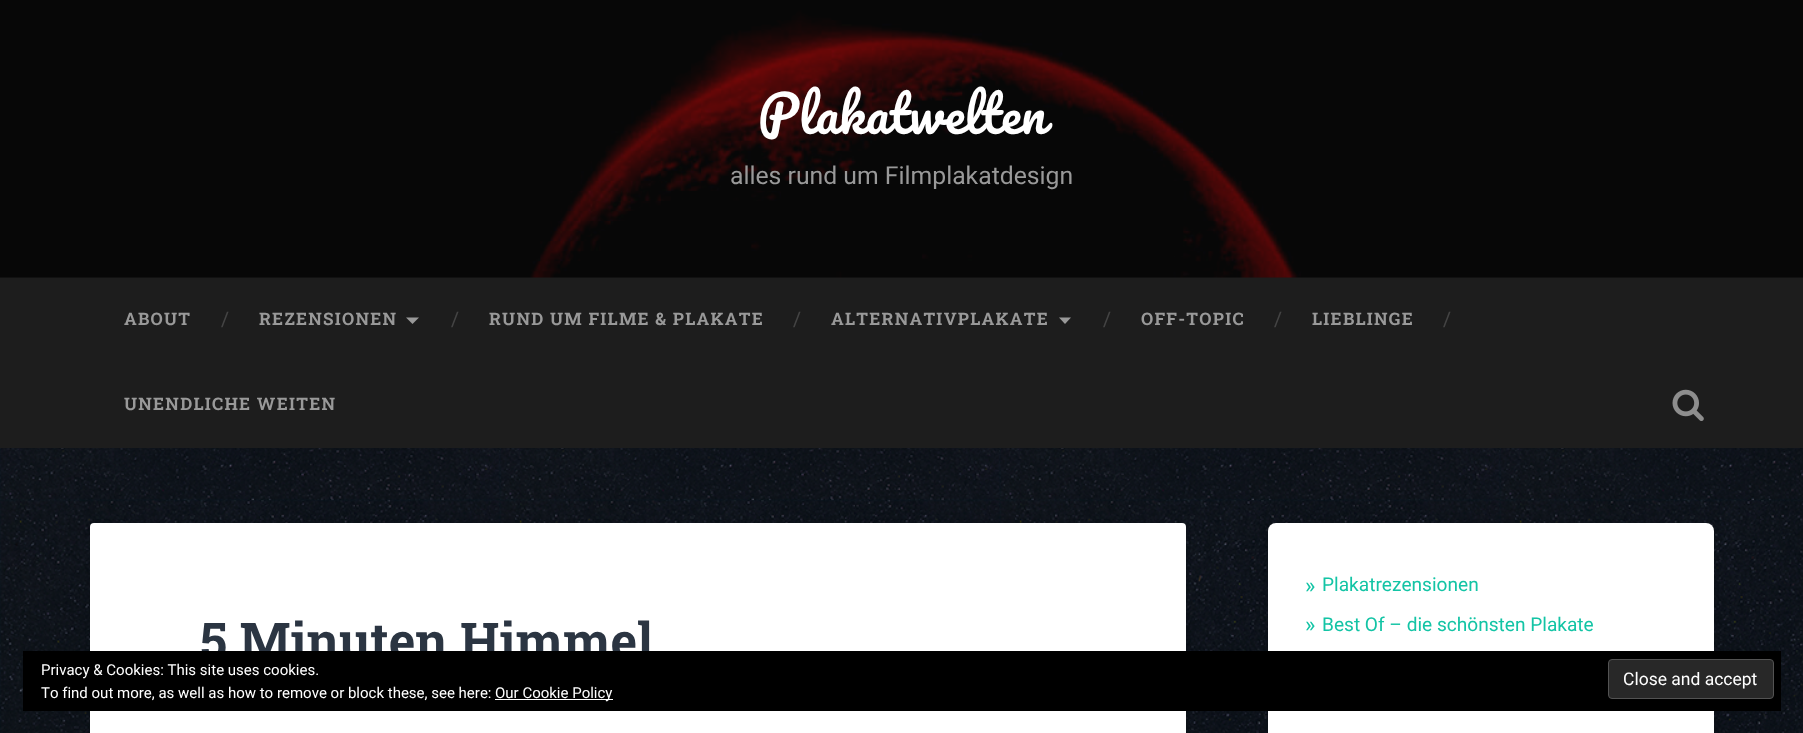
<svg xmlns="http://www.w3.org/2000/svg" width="1803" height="733">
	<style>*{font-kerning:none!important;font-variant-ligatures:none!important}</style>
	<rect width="100%" height="100%" fill="#FFFFFF" />
	<image x="0" y="448" width="1803" height="285" href="assets/img1.png" />
	<rect x="0" y="277" width="1803" height="171" fill="#1D1D1D" />
	<image x="0" y="0" width="1803" height="278" href="assets/img2.png" />
	<rect x="0" y="0" width="1803" height="278" fill="#1D1D1D" fill-opacity="0.25" />
	<text x="758" y="134" font-family="Pacifico" font-size="50.6" fill="#FFFFFF">Plakatwelten</text>
	<text x="730" y="184" font-family="Roboto" font-size="24.75" fill="#999999">alles rund um Filmplakatdesign</text>
	<text x="124" y="325" font-family="Roboto Slab" font-size="17.25" font-weight="700" letter-spacing="1.25" fill="#999999">ABOUT</text>
	<text x="221" y="326" font-family="Roboto Slab" font-size="20" fill="#444444">/</text>
	<text x="259" y="325" font-family="Roboto Slab" font-size="17.25" font-weight="700" letter-spacing="1.25" fill="#999999">REZENSIONEN</text>
	<path d="M406 317.5H419L412.5 324Z" fill="#999999" />
	<text x="451" y="326" font-family="Roboto Slab" font-size="20" fill="#444444">/</text>
	<text x="489" y="325" font-family="Roboto Slab" font-size="17.25" font-weight="700" letter-spacing="1.25" fill="#999999">RUND UM FILME &amp; PLAKATE</text>
	<text x="793" y="326" font-family="Roboto Slab" font-size="20" fill="#444444">/</text>
	<text x="831" y="325" font-family="Roboto Slab" font-size="17.25" font-weight="700" letter-spacing="1.25" fill="#999999">ALTERNATIVPLAKATE</text>
	<path d="M1059 317.5H1071L1065 324Z" fill="#999999" />
	<text x="1103" y="326" font-family="Roboto Slab" font-size="20" fill="#444444">/</text>
	<text x="1141" y="325" font-family="Roboto Slab" font-size="17.25" font-weight="700" letter-spacing="1.25" fill="#999999">OFF-TOPIC</text>
	<text x="1274" y="326" font-family="Roboto Slab" font-size="20" fill="#444444">/</text>
	<text x="1312" y="325" font-family="Roboto Slab" font-size="17.25" font-weight="700" letter-spacing="1.25" fill="#999999">LIEBLINGE</text>
	<text x="1443" y="326" font-family="Roboto Slab" font-size="20" fill="#444444">/</text>
	<text x="124" y="410" font-family="Roboto Slab" font-size="17.25" font-weight="700" letter-spacing="1.25" fill="#999999">UNENDLICHE WEITEN</text>
	<image x="1672" y="389" width="32" height="32" href="assets/img3.png" />
	<rect x="1268" y="524" width="446" height="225" rx="8" fill="#000000" fill-opacity="0.1" filter="blur(2.5px)" />
	<rect x="1268" y="523" width="446" height="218" rx="8" fill="#FFFFFF" />
	<text x="1305" y="593" font-family="Roboto" font-size="22" fill="#13C4A5">»</text>
	<text x="1322" y="591" font-family="Roboto" font-size="19.1" fill="#13C4A5">Plakatrezensionen</text>
	<text x="1305" y="632" font-family="Roboto" font-size="22" fill="#13C4A5">»</text>
	<text x="1322" y="631" font-family="Roboto" font-size="19.1" fill="#13C4A5">Best Of – die schönsten Plakate</text>
	<rect x="90" y="524" width="1096" height="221" rx="4" fill="#000000" fill-opacity="0.1" filter="blur(2.5px)" />
	<rect x="90" y="523" width="1096" height="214" rx="4" fill="#FFFFFF" />
	<text x="200" y="659" font-family="Roboto Slab" font-size="50.6" font-weight="700" fill="#2B3542">5 Minuten Himmel</text>
	<rect x="23" y="651" width="1758" height="60" fill="#000000" />
	<text x="41" y="675" font-family="Roboto" font-size="15" fill="#FFFFFF">Privacy &amp; Cookies: This site uses cookies.</text>
	<rect x="1608.5" y="659.5" width="165" height="39" rx="3.5" fill="#282828" stroke="#535353" />
	<text x="1623" y="685" font-family="Roboto" font-size="17.5" fill="#FFFFFF">Close and accept</text>
	<text x="41" y="698" font-family="Roboto" font-size="15" fill="#FFFFFF">To find out more, as well as how to remove or block these, see here:</text>
	<rect x="495" y="699" width="118" height="1" fill="#FFFFFF" />
	<text x="495" y="698" font-family="Roboto" font-size="15" fill="#FFFFFF">Our Cookie Policy</text>
</svg>
